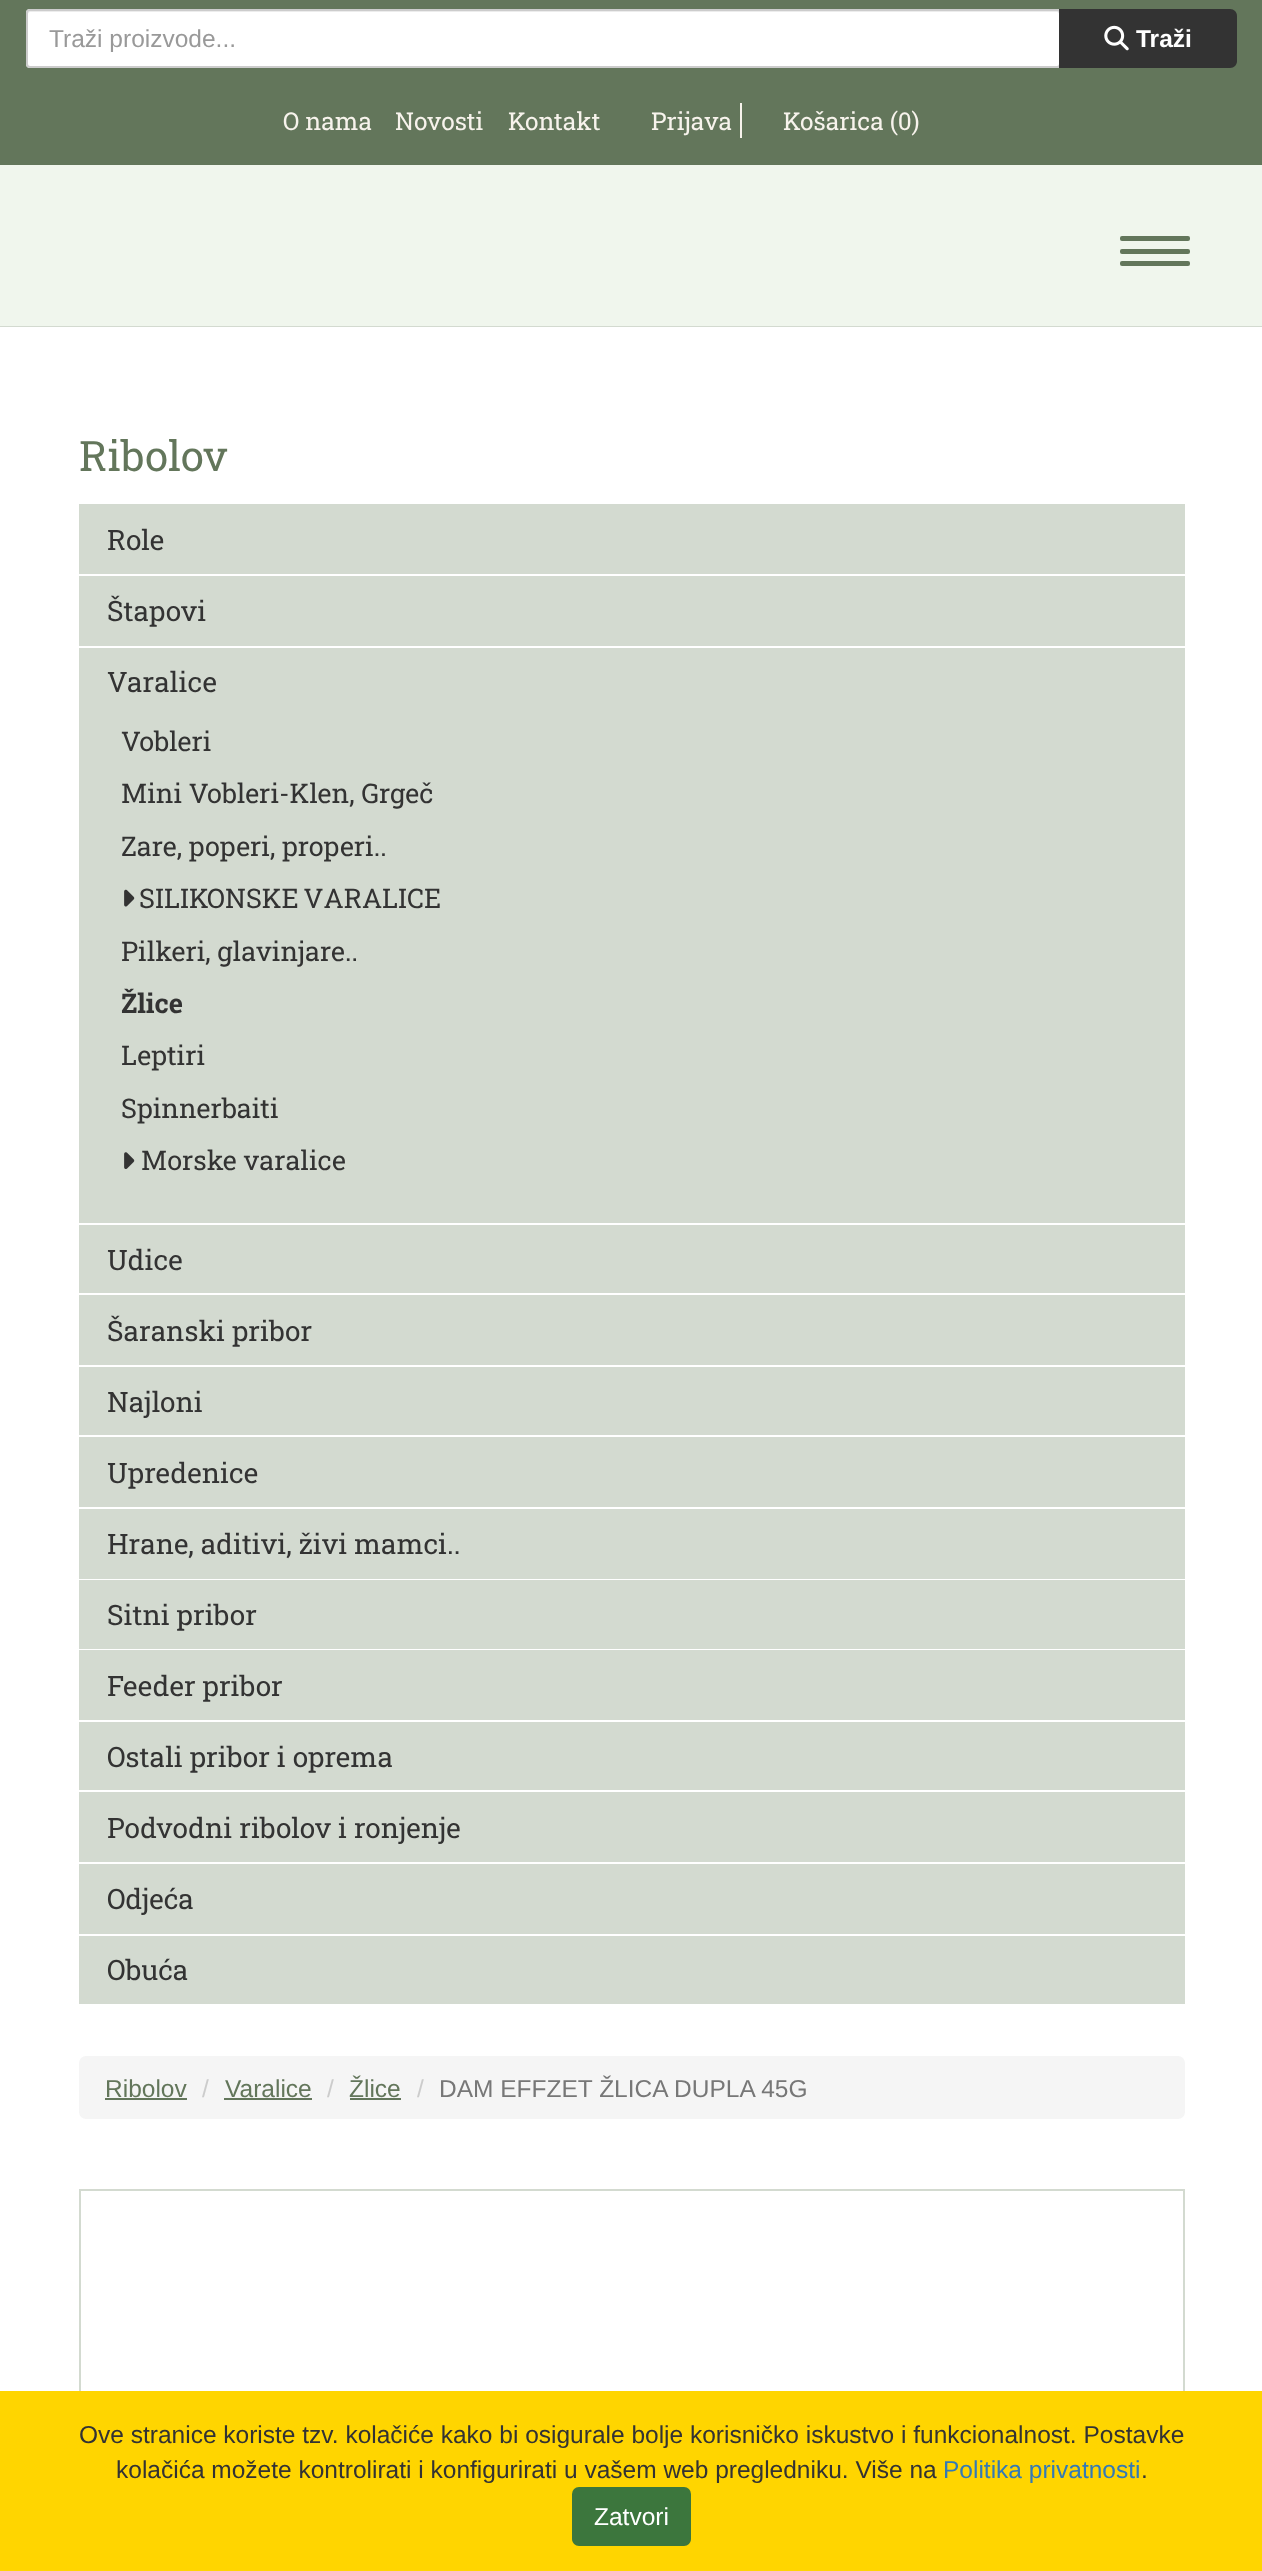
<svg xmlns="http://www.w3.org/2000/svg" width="1262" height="2571">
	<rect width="100%" height="100%" fill="#F0F6ED" />
	<rect x="0" y="326" width="1262" height="1" fill="#D3DAD0" />
	<rect x="0" y="0" width="1262" height="165" fill="#63765B" />
	<rect x="26" y="9" width="1035" height="59" rx="4" fill="#FFFFFF" />
	<path d="M30 12H1057C1058 12 1059 13 1059 14V13C1059 12 1058 11 1057 11H30C29 11 28 12 28 13V14C28 13 29 12 30 12Z" fill="#ECECEC" />
	<rect x="27" y="10" width="1033" height="57" rx="3" fill="none" stroke="#CCCCCC" stroke-width="2" />
	<text x="49" y="47" font-family="Liberation Sans" font-size="24.5" fill="#999999">Traži proizvode...</text>
	<path d="M1059 9H1230C1234 9 1237 12 1237 16V61C1237 65 1234 68 1230 68H1059Z" fill="#333333" />
	<image x="1104" y="25" width="25" height="26" href="assets/img1.png" />
	<text x="1136" y="47" font-family="Liberation Sans" font-size="24.5" font-weight="700" fill="#FFFFFF">Traži</text>
	<g font-family="Roboto Slab" font-size="24.5" fill="#F7F3EC">
		<text x="283" y="130">O nama</text>
		<text x="395" y="130">Novosti</text>
		<text x="508" y="130">Kontakt</text>
	</g>
	<rect x="740" y="103" width="2" height="35" fill="#F7F3EC" />
	<g font-family="Roboto Slab" font-size="24.5" fill="#F7F3EC">
		<text x="651" y="130">Prijava</text>
		<text x="783" y="130">Košarica (0)</text>
	</g>
	<rect x="1120" y="236" width="70" height="5" rx="2" fill="#63765B" />
	<rect x="1120" y="249" width="70" height="5" rx="2" fill="#63765B" />
	<rect x="1120" y="261" width="70" height="5" rx="2" fill="#63765B" />
	<rect x="0" y="327" width="1262" height="2064" fill="#FFFFFF" />
	<text x="79" y="471" font-family="Roboto Slab" font-size="42" fill="#63765B">Ribolov</text>
	<rect x="79" y="504" width="1106" height="70" fill="#D3DAD0" />
	<text x="107" y="550" font-family="Roboto Slab" font-size="28" fill="#333333">Role</text>
	<rect x="79" y="576" width="1106" height="70" fill="#D3DAD0" />
	<text x="107" y="621" font-family="Roboto Slab" font-size="28" fill="#333333">Štapovi</text>
	<rect x="79" y="648" width="1106" height="575" fill="#D3DAD0" />
	<text x="107" y="692" font-family="Roboto Slab" font-size="28" fill="#333333">Varalice</text>
	<g font-family="Roboto Slab" font-size="27" fill="#333333">
		<text x="121" y="751">Vobleri</text>
		<text x="121" y="803">Mini Vobleri-Klen, Grgeč</text>
		<text x="121" y="856">Zare, poperi, properi..</text>
	</g>
	<image x="124" y="889" width="11" height="18" href="assets/img2.png" />
	<g font-family="Roboto Slab" font-size="27" fill="#333333">
		<text x="139" y="908" word-spacing="-2">SILIKONSKE VARALICE</text>
		<text x="121" y="961">Pilkeri, glavinjare..</text>
	</g>
	<text x="121" y="1013" font-family="Roboto Slab" font-size="27" font-weight="700" fill="#333333">Žlice</text>
	<g font-family="Roboto Slab" font-size="27" fill="#333333">
		<text x="121" y="1065">Leptiri</text>
		<text x="121" y="1118">Spinnerbaiti</text>
	</g>
	<image x="124" y="1152" width="11" height="17" href="assets/img3.png" />
	<text x="141" y="1170" font-family="Roboto Slab" font-size="27" fill="#333333">Morske varalice</text>
	<rect x="79" y="1225" width="1106" height="68" fill="#D3DAD0" />
	<text x="107" y="1270" font-family="Roboto Slab" font-size="28" fill="#333333">Udice</text>
	<rect x="79" y="1295" width="1106" height="70" fill="#D3DAD0" />
	<text x="107" y="1341" font-family="Roboto Slab" font-size="28" fill="#333333">Šaranski pribor</text>
	<rect x="79" y="1367" width="1106" height="68" fill="#D3DAD0" />
	<text x="107" y="1412" font-family="Roboto Slab" font-size="28" fill="#333333">Najloni</text>
	<rect x="79" y="1437" width="1106" height="70" fill="#D3DAD0" />
	<text x="107" y="1483" font-family="Roboto Slab" font-size="28" fill="#333333">Upredenice</text>
	<rect x="79" y="1509" width="1106" height="70" fill="#D3DAD0" />
	<text x="107" y="1554" font-family="Roboto Slab" font-size="28" fill="#333333">Hrane, aditivi, živi mamci..</text>
	<rect x="79" y="1580" width="1106" height="69" fill="#D3DAD0" />
	<text x="107" y="1625" font-family="Roboto Slab" font-size="28" fill="#333333">Sitni pribor</text>
	<rect x="79" y="1650" width="1106" height="70" fill="#D3DAD0" />
	<text x="107" y="1696" font-family="Roboto Slab" font-size="28" fill="#333333">Feeder pribor</text>
	<rect x="79" y="1722" width="1106" height="68" fill="#D3DAD0" />
	<text x="107" y="1767" font-family="Roboto Slab" font-size="28" fill="#333333">Ostali pribor i oprema</text>
	<rect x="79" y="1792" width="1106" height="70" fill="#D3DAD0" />
	<text x="107" y="1838" font-family="Roboto Slab" font-size="28" fill="#333333">Podvodni ribolov i ronjenje</text>
	<rect x="79" y="1864" width="1106" height="70" fill="#D3DAD0" />
	<text x="107" y="1909" font-family="Roboto Slab" font-size="28" fill="#333333">Odjeća</text>
	<rect x="79" y="1936" width="1106" height="68" fill="#D3DAD0" />
	<text x="107" y="1980" font-family="Roboto Slab" font-size="28" fill="#333333">Obuća</text>
	<rect x="79" y="2056" width="1106" height="63" rx="7" fill="#F5F5F5" />
	<text x="105" y="2097" font-family="Liberation Sans" font-size="24.5" fill="#63765B">Ribolov</text>
	<rect x="105" y="2098" width="82" height="2" fill="#63765B" />
	<text x="202" y="2097" font-family="Liberation Sans" font-size="24.5" fill="#CCCCCC">/</text>
	<text x="225" y="2097" font-family="Liberation Sans" font-size="24.5" fill="#63765B">Varalice</text>
	<rect x="224" y="2098" width="88" height="2" fill="#63765B" />
	<text x="327" y="2097" font-family="Liberation Sans" font-size="24.5" fill="#CCCCCC">/</text>
	<text x="349" y="2097" font-family="Liberation Sans" font-size="24.5" fill="#63765B">Žlice</text>
	<rect x="350" y="2098" width="51" height="2" fill="#63765B" />
	<text x="417" y="2097" font-family="Liberation Sans" font-size="24.5" fill="#CCCCCC">/</text>
	<text x="439" y="2097" font-family="Liberation Sans" font-size="24.5" fill="#777777">DAM EFFZET ŽLICA DUPLA 45G</text>
	<rect x="80" y="2190" width="1104" height="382" fill="none" stroke="#D3DAD0" stroke-width="2" />
	<rect x="0" y="2391" width="1262" height="180" fill="#FFD500" />
	<g font-family="Liberation Sans" font-size="24.5" fill="#333333">
		<text x="79" y="2443">Ove stranice koriste tzv. kolačiće kako bi osigurale bolje korisničko iskustvo i funkcionalnost. Postavke</text>
		<text x="116" y="2478">kolačića možete kontrolirati i konfigurirati u vašem web pregledniku. Više na</text>
	</g>
	<text x="943" y="2478" font-family="Liberation Sans" font-size="24.5" fill="#337AB7">Politika privatnosti</text>
	<text x="1141" y="2478" font-family="Liberation Sans" font-size="24.5" fill="#333333">.</text>
	<rect x="572" y="2487" width="119" height="59" rx="7" fill="#3C763D" />
	<text x="594" y="2525" font-family="Liberation Sans" font-size="24.5" fill="#FFFFFF">Zatvori</text>
</svg>
